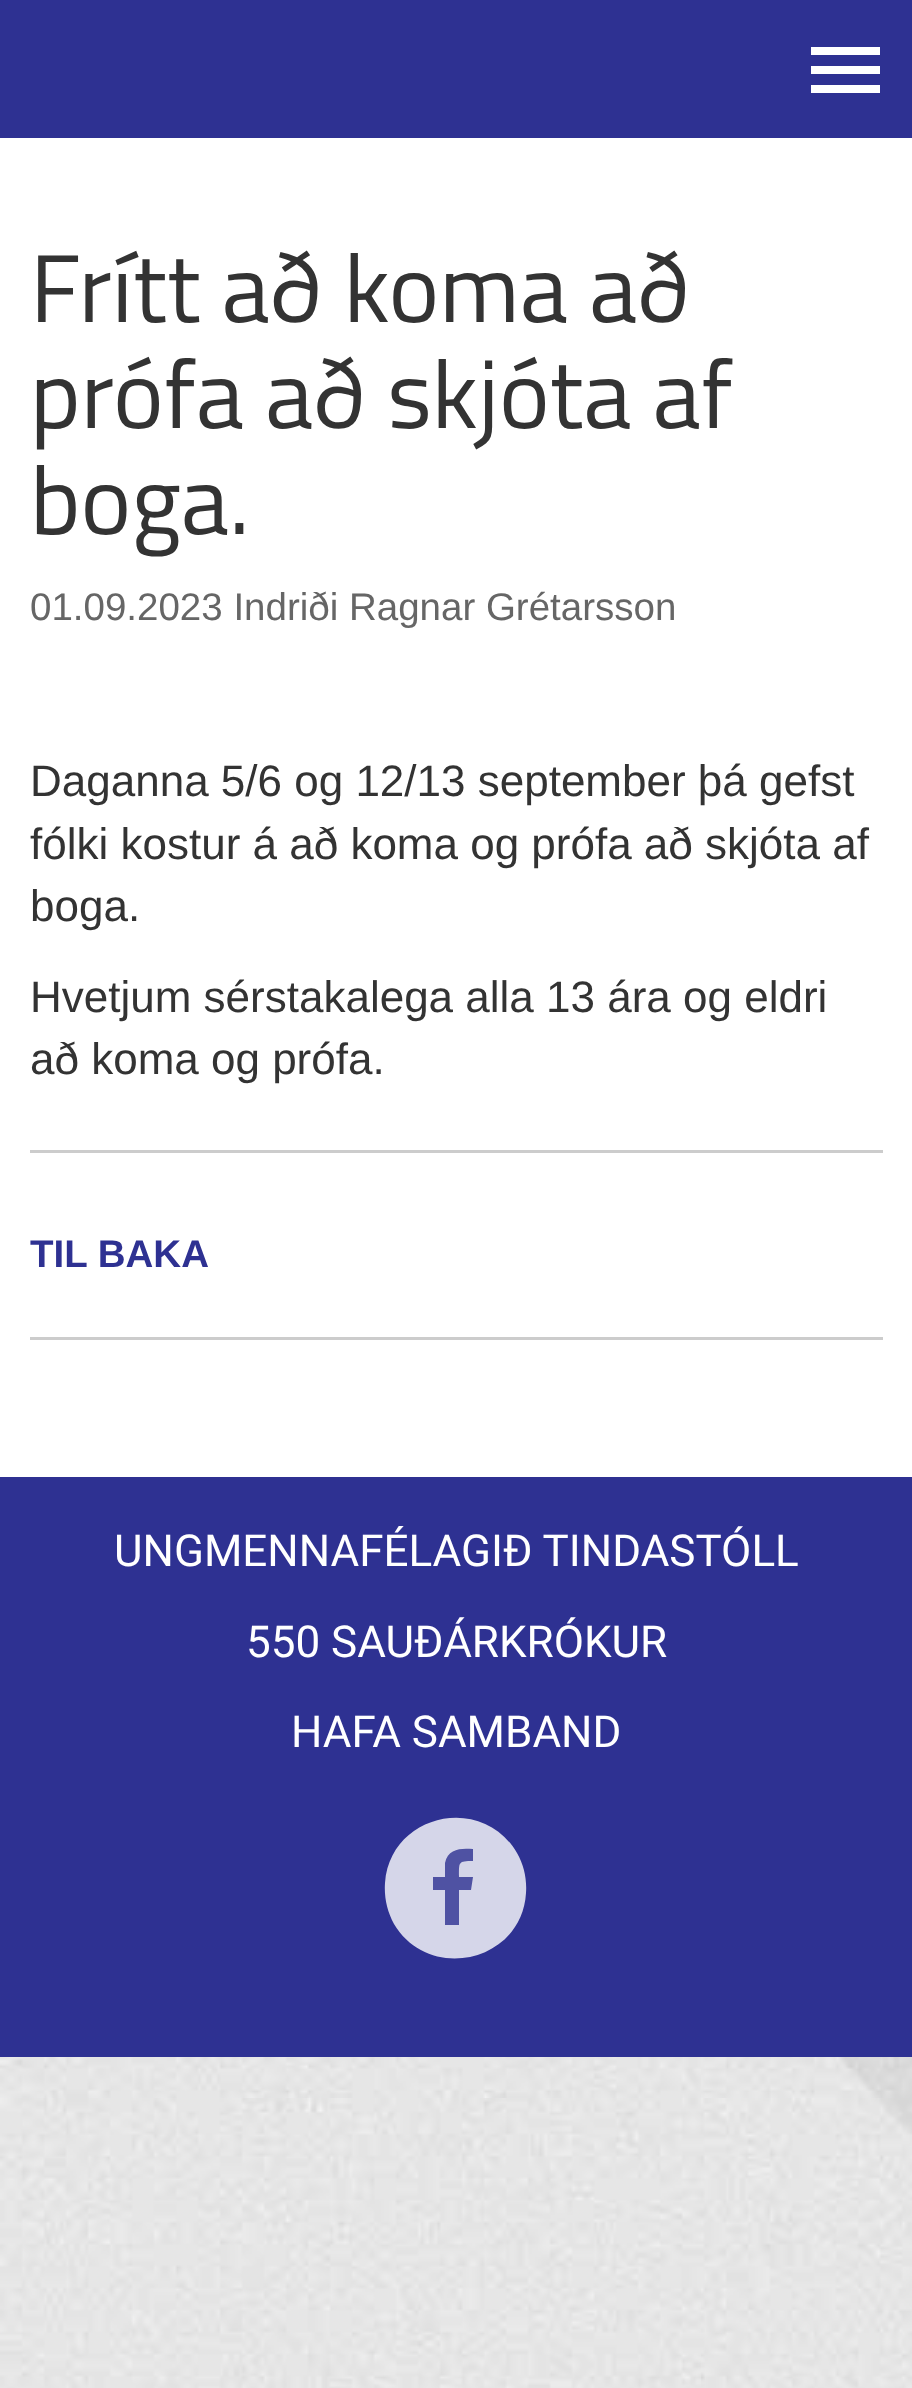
<svg xmlns="http://www.w3.org/2000/svg" width="912" height="2388">
	<rect width="100%" height="100%" fill="#FFFFFF" />
	<image x="0" y="2057" width="912" height="331" href="assets/img1.png" />
	<rect x="0" y="0" width="912" height="138" fill="#2E3192" />
	<rect x="811" y="47" width="69" height="8" fill="#FFFFFF" />
	<rect x="811" y="66" width="69" height="8" fill="#FFFFFF" />
	<rect x="811" y="85" width="69" height="8" fill="#FFFFFF" />
	<g font-family="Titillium" font-size="96.25" fill="#333333">
		<text x="30" y="322">Frítt að koma að</text>
		<text x="30" y="428">prófa að skjóta af</text>
		<text x="30" y="534">boga.</text>
	</g>
	<rect x="30" y="1337" width="853" height="3" fill="#CCCCCC" />
	<text x="30" y="620" font-family="Liberation Sans" font-size="38.5" fill="#666666">01.09.2023 Indriði Ragnar Grétarsson</text>
	<g font-family="Liberation Sans" font-size="44" fill="#333333">
		<text x="30" y="796">Daganna 5/6 og 12/13 september þá gefst</text>
		<text x="30" y="859">fólki kostur á að koma og prófa að skjóta af</text>
		<text x="30" y="921">boga.</text>
		<text x="30" y="1012">Hvetjum sérstakalega alla 13 ára og eldri</text>
		<text x="30" y="1074">að koma og prófa.</text>
	</g>
	<rect x="30" y="1150" width="853" height="3" fill="#CCCCCC" />
	<text x="30" y="1267" font-family="Liberation Sans" font-size="38.5" font-weight="700" fill="#2E3192">TIL BAKA</text>
	<rect x="0" y="1477" width="912" height="580" fill="#2E3192" />
	<g font-family="Roboto" font-size="44" fill="#FFFFFF">
		<text x="114" y="1566">UNGMENNAFÉLAGIÐ TINDASTÓLL</text>
		<text x="246" y="1657">550 SAUÐÁRKRÓKUR</text>
		<text x="291" y="1747">HAFA SAMBAND</text>
	</g>
	<path d="M517 1853C524 1865 527 1879 526 1893C522 1962 429 1983 394 1924C387 1911 384 1897 385 1883C390 1814 482 1793 517 1853Z" fill="#D5D6E9" />
	<path d="M473 1849V1861C458 1861 459 1862 459 1877H473L471 1890H459V1925H445V1890H433V1877H445V1863C448 1848 462 1848 473 1849Z" fill="#4F52A3" />
</svg>
